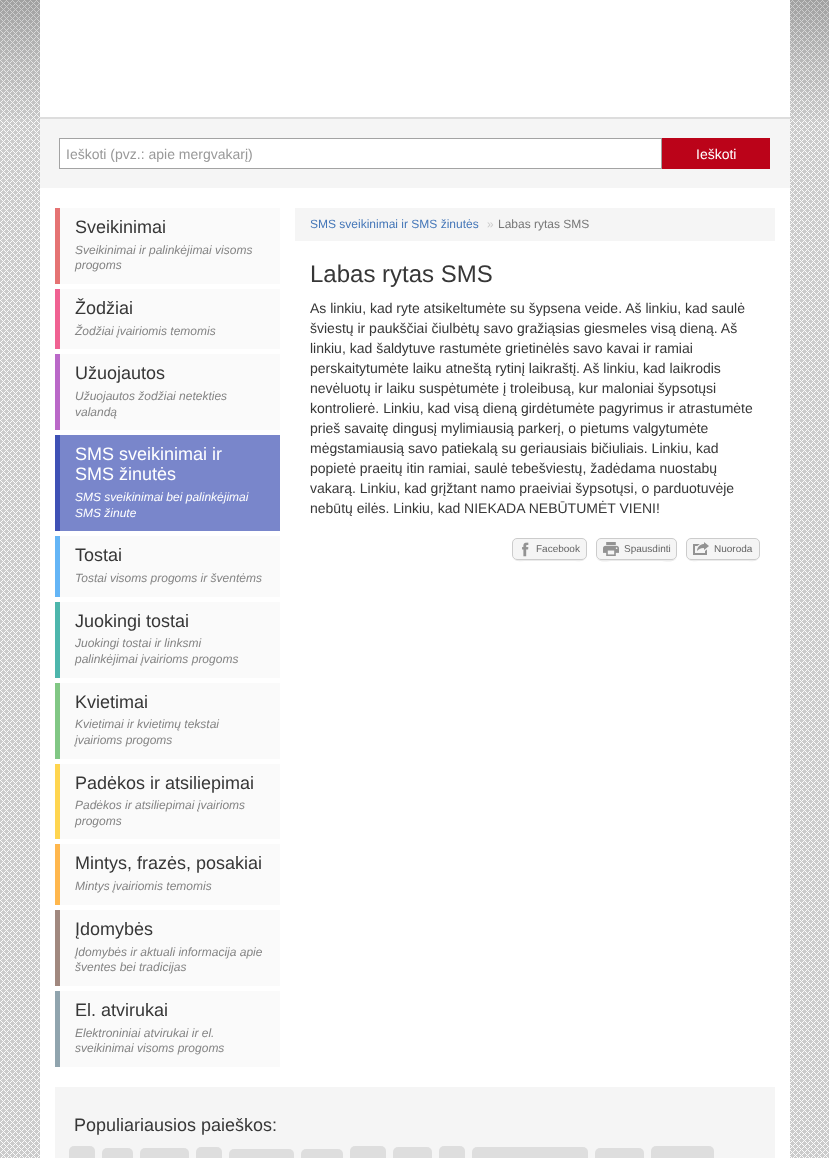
<svg xmlns="http://www.w3.org/2000/svg" width="829" height="1158">
	<rect width="100%" height="100%" fill="#FFFFFF" />
	<image x="0" y="120" width="829" height="1038" href="assets/img1.png" />
	<image x="0" y="0" width="829" height="120" href="assets/img2.png" />
	<rect x="40" y="0" width="750" height="1158" fill="#FFFFFF" />
	<rect x="40" y="119" width="750" height="69" fill="#F5F5F5" />
	<rect x="40" y="117" width="750" height="2" fill="#DDDDDD" />
	<rect x="59.5" y="138.5" width="602" height="30" fill="#FFFFFF" stroke="#A3A3A3" />
	<text x="66" y="159" font-family="Liberation Sans" font-size="14" fill="#999999">Ieškoti (pvz.: apie mergvakarį)</text>
	<rect x="662" y="138" width="108" height="31" fill="#BB0319" />
	<text x="696" y="159" font-family="Liberation Sans" font-size="14" fill="#FFFFFF">Ieškoti</text>
	<rect x="60" y="208" width="220" height="76" fill="#FAFAFA" />
	<rect x="55" y="208" width="5" height="76" fill="#E57373" />
	<text x="75" y="233" font-family="Liberation Sans" font-size="18" fill="#373737">Sveikinimai</text>
	<g font-family="Liberation Sans" font-size="12" font-style="italic" fill="#848484">
		<text x="75" y="254">Sveikinimai ir palinkėjimai visoms</text>
		<text x="75" y="269">progoms</text>
	</g>
	<rect x="60" y="289" width="220" height="60" fill="#FAFAFA" />
	<rect x="55" y="289" width="5" height="60" fill="#F06292" />
	<text x="75" y="314" font-family="Liberation Sans" font-size="18" fill="#373737">Žodžiai</text>
	<text x="75" y="335" font-family="Liberation Sans" font-size="12" font-style="italic" fill="#848484">Žodžiai įvairiomis temomis</text>
	<rect x="60" y="354" width="220" height="76" fill="#FAFAFA" />
	<rect x="55" y="354" width="5" height="76" fill="#BA68C8" />
	<text x="75" y="379" font-family="Liberation Sans" font-size="18" fill="#373737">Užuojautos</text>
	<g font-family="Liberation Sans" font-size="12" font-style="italic" fill="#848484">
		<text x="75" y="400">Užuojautos žodžiai netekties</text>
		<text x="75" y="416">valandą</text>
	</g>
	<rect x="60" y="435" width="220" height="96" fill="#7986CB" />
	<rect x="55" y="435" width="5" height="96" fill="#3F51B5" />
	<g font-family="Liberation Sans" font-size="18" fill="#FFFFFF">
		<text x="75" y="460">SMS sveikinimai ir</text>
		<text x="75" y="480">SMS žinutės</text>
	</g>
	<g font-family="Liberation Sans" font-size="12" font-style="italic" fill="#FFFFFF">
		<text x="75" y="501">SMS sveikinimai bei palinkėjimai</text>
		<text x="75" y="517">SMS žinute</text>
	</g>
	<rect x="60" y="536" width="220" height="61" fill="#FAFAFA" />
	<rect x="55" y="536" width="5" height="61" fill="#64B5F6" />
	<text x="75" y="561" font-family="Liberation Sans" font-size="18" fill="#373737">Tostai</text>
	<text x="75" y="582" font-family="Liberation Sans" font-size="12" font-style="italic" fill="#848484">Tostai visoms progoms ir šventėms</text>
	<rect x="60" y="602" width="220" height="76" fill="#FAFAFA" />
	<rect x="55" y="602" width="5" height="76" fill="#4DB6AC" />
	<text x="75" y="627" font-family="Liberation Sans" font-size="18" fill="#373737">Juokingi tostai</text>
	<g font-family="Liberation Sans" font-size="12" font-style="italic" fill="#848484">
		<text x="75" y="647">Juokingi tostai ir linksmi</text>
		<text x="75" y="663">palinkėjimai įvairioms progoms</text>
	</g>
	<rect x="60" y="683" width="220" height="76" fill="#FAFAFA" />
	<rect x="55" y="683" width="5" height="76" fill="#81C784" />
	<text x="75" y="708" font-family="Liberation Sans" font-size="18" fill="#373737">Kvietimai</text>
	<g font-family="Liberation Sans" font-size="12" font-style="italic" fill="#848484">
		<text x="75" y="728">Kvietimai ir kvietimų tekstai</text>
		<text x="75" y="744">įvairioms progoms</text>
	</g>
	<rect x="60" y="764" width="220" height="75" fill="#FAFAFA" />
	<rect x="55" y="764" width="5" height="75" fill="#FFD54F" />
	<text x="75" y="789" font-family="Liberation Sans" font-size="18" fill="#373737">Padėkos ir atsiliepimai</text>
	<g font-family="Liberation Sans" font-size="12" font-style="italic" fill="#848484">
		<text x="75" y="809">Padėkos ir atsiliepimai įvairioms</text>
		<text x="75" y="825">progoms</text>
	</g>
	<rect x="60" y="844" width="220" height="61" fill="#FAFAFA" />
	<rect x="55" y="844" width="5" height="61" fill="#FFB74D" />
	<text x="75" y="869" font-family="Liberation Sans" font-size="18" fill="#373737">Mintys, frazės, posakiai</text>
	<text x="75" y="890" font-family="Liberation Sans" font-size="12" font-style="italic" fill="#848484">Mintys įvairiomis temomis</text>
	<rect x="60" y="910" width="220" height="76" fill="#FAFAFA" />
	<rect x="55" y="910" width="5" height="76" fill="#A1887F" />
	<text x="75" y="935" font-family="Liberation Sans" font-size="18" fill="#373737">Įdomybės</text>
	<g font-family="Liberation Sans" font-size="12" font-style="italic" fill="#848484">
		<text x="75" y="956">Įdomybės ir aktuali informacija apie</text>
		<text x="75" y="971">šventes bei tradicijas</text>
	</g>
	<rect x="60" y="991" width="220" height="76" fill="#FAFAFA" />
	<rect x="55" y="991" width="5" height="76" fill="#90A4AE" />
	<text x="75" y="1016" font-family="Liberation Sans" font-size="18" fill="#373737">El. atvirukai</text>
	<g font-family="Liberation Sans" font-size="12" font-style="italic" fill="#848484">
		<text x="75" y="1037">Elektroniniai atvirukai ir el.</text>
		<text x="75" y="1052">sveikinimai visoms progoms</text>
	</g>
	<rect x="295" y="208" width="480" height="33" fill="#F5F5F5" />
	<text x="310" y="228" font-family="Liberation Sans" font-size="12" fill="#4577B8">SMS sveikinimai ir SMS žinutės</text>
	<text x="487" y="228" font-family="Liberation Sans" font-size="12" fill="#CCCCCC">»</text>
	<text x="498" y="228" font-family="Liberation Sans" font-size="12" fill="#777777">Labas rytas SMS</text>
	<text x="310" y="282" font-family="Liberation Sans" font-size="24" fill="#373737">Labas rytas SMS</text>
	<g font-family="Liberation Sans" font-size="14" fill="#373737">
		<text x="310" y="313">As linkiu, kad ryte atsikeltumėte su šypsena veide. Aš linkiu, kad saulė</text>
		<text x="310" y="333">šviestų ir paukščiai čiulbėtų savo gražiąsias giesmeles visą dieną. Aš</text>
		<text x="310" y="353">linkiu, kad šaldytuve rastumėte grietinėlės savo kavai ir ramiai</text>
		<text x="310" y="373">perskaitytumėte laiku atneštą rytinį laikraštį. Aš linkiu, kad laikrodis</text>
		<text x="310" y="393">nevėluotų ir laiku suspėtumėte į troleibusą, kur maloniai šypsotųsi</text>
		<text x="310" y="413">kontrolierė. Linkiu, kad visą dieną girdėtumėte pagyrimus ir atrastumėte</text>
		<text x="310" y="433">prieš savaitę dingusį mylimiausią parkerį, o pietums valgytumėte</text>
		<text x="310" y="453">mėgstamiausią savo patiekalą su geriausiais bičiuliais. Linkiu, kad</text>
		<text x="310" y="473">popietė praeitų itin ramiai, saulė tebešviestų, žadėdama nuostabų</text>
		<text x="310" y="493">vakarą. Linkiu, kad grįžtant namo praeiviai šypsotųsi, o parduotuvėje</text>
		<text x="310" y="513">nebūtų eilės. Linkiu, kad NIEKADA NEBŪTUMĖT VIENI!</text>
	</g>
	<path d="M512 555C512 563 522 561 528 561H571C577 561 587 563 587 555C587 558 585 560 582 560H517C514 560 512 558 512 555Z" fill="#EBEBEB" />
	<rect x="512.5" y="538.5" width="74" height="21" rx="4.5" fill="#F5F5F5" stroke="#CCCCCC" />
	<image x="522" y="542" width="7" height="15" href="assets/img3.png" />
	<text x="536" y="552" font-family="Liberation Sans" font-size="10" fill="#636363">Facebook</text>
	<path d="M596 555C596 564 607 561 613 561H660C666 561 677 564 677 555C677 558 675 560 672 560H601C598 560 596 558 596 555Z" fill="#EBEBEB" />
	<rect x="596.5" y="538.5" width="80" height="21" rx="4.5" fill="#F5F5F5" stroke="#CCCCCC" />
	<image x="603" y="542" width="16" height="14" href="assets/img4.png" />
	<text x="624" y="552" font-family="Liberation Sans" font-size="10" fill="#636363">Spausdinti</text>
	<path d="M686 555C686 563 696 561 702 561H744C750 561 760 563 760 555C760 558 758 560 755 560H691C688 560 686 558 686 555Z" fill="#EBEBEB" />
	<rect x="686.5" y="538.5" width="73" height="21" rx="4.5" fill="#F5F5F5" stroke="#CCCCCC" />
	<image x="693" y="542" width="16" height="13" href="assets/img5.png" />
	<text x="714" y="552" font-family="Liberation Sans" font-size="10" fill="#636363">Nuoroda</text>
	<rect x="55" y="1087" width="720" height="71" fill="#F5F5F5" />
	<text x="74" y="1131" font-family="Liberation Sans" font-size="18" fill="#373737">Populiariausios paieškos:</text>
	<rect x="69" y="1146" width="26" height="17" rx="5" fill="#DEDEDE" />
	<rect x="102" y="1148" width="31" height="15" rx="5" fill="#DEDEDE" />
	<rect x="140" y="1148" width="49" height="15" rx="5" fill="#DEDEDE" />
	<rect x="196" y="1147" width="26" height="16" rx="5" fill="#DEDEDE" />
	<rect x="229" y="1149" width="65" height="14" rx="5" fill="#DEDEDE" />
	<rect x="301" y="1149" width="42" height="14" rx="5" fill="#DEDEDE" />
	<rect x="350" y="1146" width="36" height="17" rx="5" fill="#DEDEDE" />
	<rect x="393" y="1147" width="39" height="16" rx="5" fill="#DEDEDE" />
	<rect x="439" y="1146" width="26" height="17" rx="5" fill="#DEDEDE" />
	<rect x="472" y="1147" width="116" height="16" rx="5" fill="#DEDEDE" />
	<rect x="595" y="1148" width="49" height="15" rx="5" fill="#DEDEDE" />
	<rect x="651" y="1146" width="63" height="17" rx="5" fill="#DEDEDE" />
</svg>
